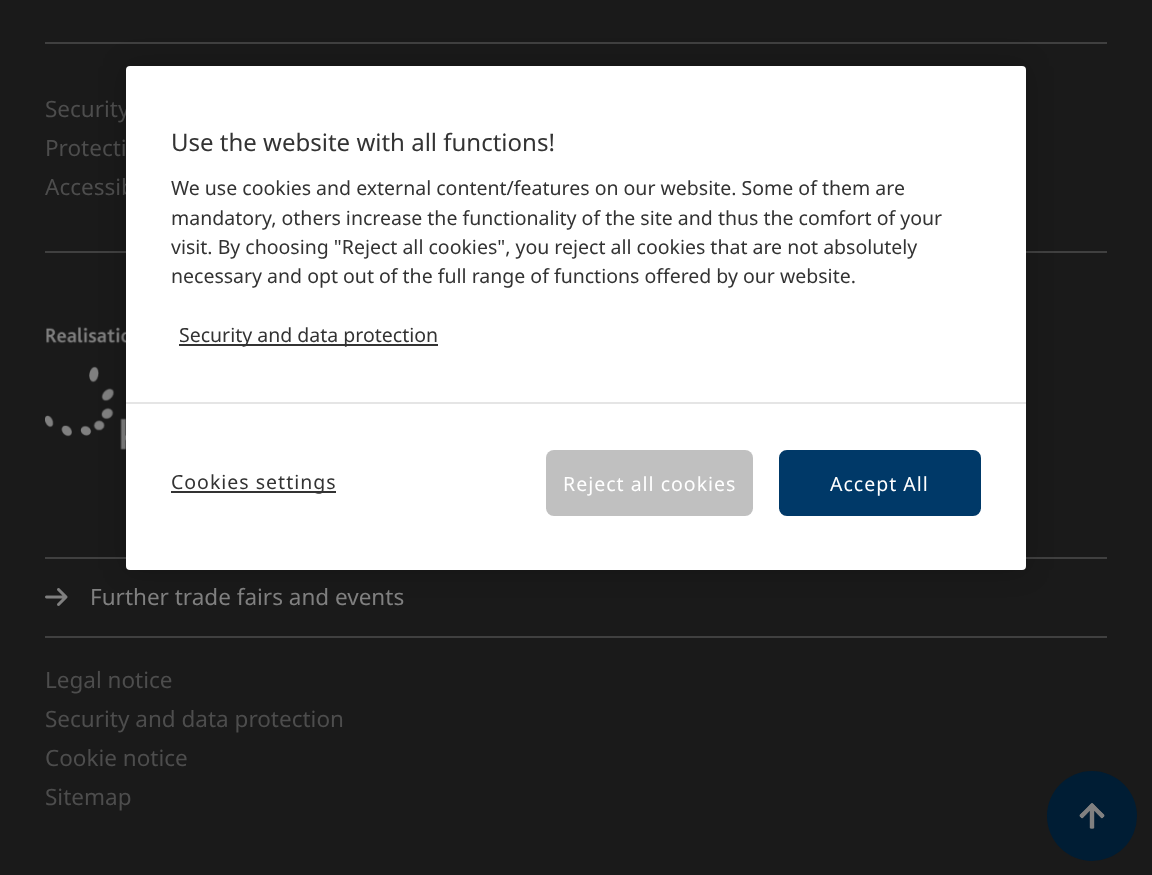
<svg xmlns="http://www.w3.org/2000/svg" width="1152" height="875">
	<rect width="100%" height="100%" fill="#1A1A1A" />
	<rect x="45" y="42" width="1062" height="2" fill="#404040" />
	<g font-family="Noto Sans" font-size="22.5" fill="#4D4D4D">
		<text x="45" y="117">Security</text>
		<text x="45" y="156">Protecti</text>
		<text x="45" y="195">Accessib</text>
	</g>
	<rect x="45" y="251" width="1062" height="2" fill="#404040" />
	<image x="45" y="326" width="81" height="124" href="assets/img1.png" />
	<rect x="45" y="557" width="1062" height="2" fill="#404040" />
	<image x="45" y="588" width="23" height="18" href="assets/img2.png" />
	<text x="90" y="605" font-family="Noto Sans" font-size="22.5" fill="#808080">Further trade fairs and events</text>
	<rect x="45" y="636" width="1062" height="2" fill="#404040" />
	<g font-family="Noto Sans" font-size="22.5" fill="#4D4D4D">
		<text x="45" y="688">Legal notice</text>
		<text x="45" y="727">Security and data protection</text>
		<text x="45" y="766">Cookie notice</text>
		<text x="45" y="805">Sitemap</text>
	</g>
	<rect x="126" y="66" width="900" height="504" rx="4" fill="#000000" fill-opacity="0.2" filter="blur(13.5px)" />
	<rect x="126" y="66" width="900" height="504" rx="4" fill="#FFFFFF" />
	<text x="171" y="151" font-family="Noto Sans" font-size="24" fill="#333333">Use the website with all functions!</text>
	<g font-family="Noto Sans" font-size="19.5" fill="#333333">
		<text x="171" y="195">We use cookies and external content/features on our website. Some of them are</text>
		<text x="171" y="225">mandatory, others increase the functionality of the site and thus the comfort of your</text>
		<text x="171" y="254">visit. By choosing "Reject all cookies", you reject all cookies that are not absolutely</text>
		<text x="171" y="283">necessary and opt out of the full range of functions offered by our website.</text>
	</g>
	<rect x="179" y="344" width="259" height="2" fill="#333333" />
	<text x="179" y="342" font-family="Noto Sans" font-size="19.5" fill="#333333">Security and data protection</text>
	<rect x="126" y="402" width="900" height="2" fill="#E5E5E5" />
	<rect x="171" y="491" width="165" height="2" fill="#333333" />
	<text x="171" y="489" font-family="Noto Sans" font-size="19.5" letter-spacing="1" fill="#333333">Cookies settings</text>
	<rect x="546" y="450" width="207" height="66" rx="8" fill="#C0C0C0" />
	<text x="563" y="491" font-family="Noto Sans" font-size="19.5" letter-spacing="1" fill="#FFFFFF">Reject all cookies</text>
	<rect x="780" y="451" width="200" height="64" rx="7" fill="#003968" stroke="#003968" stroke-width="2" />
	<text x="830" y="491" font-family="Noto Sans" font-size="19.5" letter-spacing="1" fill="#FFFFFF">Accept All</text>
	<circle cx="1092" cy="816" r="45" fill="#001D34" />
	<image x="1079" y="803" width="26" height="26" href="assets/img3.png" />
</svg>
